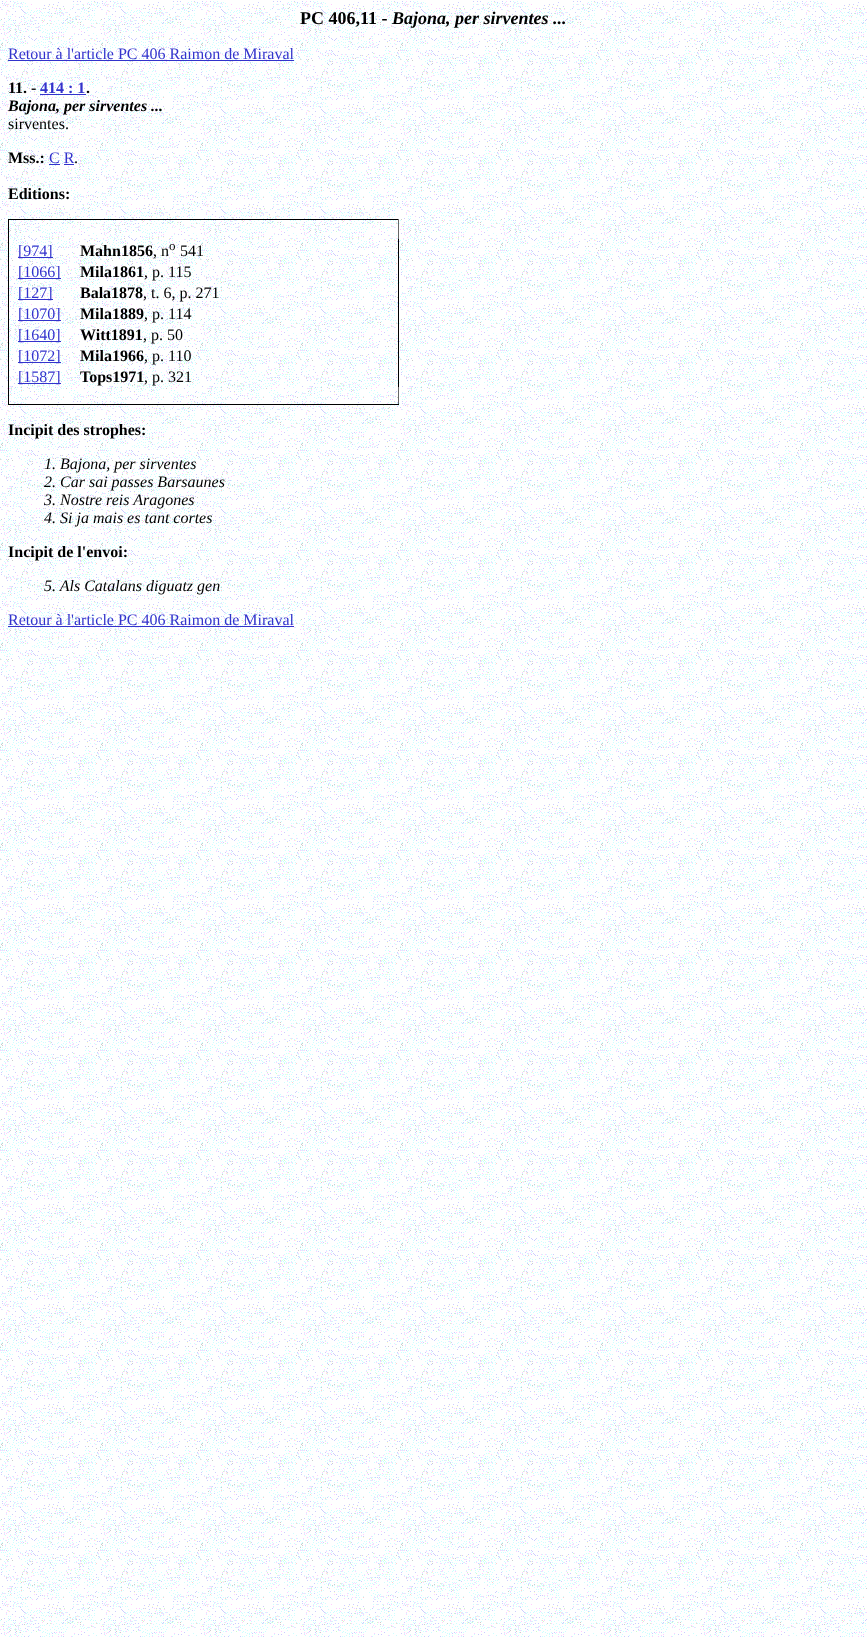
<svg xmlns="http://www.w3.org/2000/svg" width="867" height="1637">
	<rect width="100%" height="100%" fill="#FFFFFF" />
	<image x="0" y="1" width="867" height="1636" href="assets/img1.png" />
	<text x="300" y="24" font-family="Liberation Serif" font-size="18" font-weight="700" fill="#000000">PC 406,11 -</text>
	<text x="392" y="24" font-family="Liberation Serif" font-size="18" font-weight="700" font-style="italic" fill="#000000">Bajona, per sirventes ...</text>
	<text x="8" y="59" font-family="Liberation Serif" font-size="16" fill="#3333CC">Retour à l'article PC 406 Raimon de Miraval</text>
	<rect x="8" y="60" width="286" height="1" fill="#3333CC" />
	<text x="8" y="93" font-family="Liberation Serif" font-size="16" font-weight="700" fill="#000000">11. -</text>
	<text x="40" y="93" font-family="Liberation Serif" font-size="16" font-weight="700" fill="#3333CC">414 : 1</text>
	<text x="86" y="93" font-family="Liberation Serif" font-size="16" font-weight="700" fill="#000000">.</text>
	<rect x="40" y="94" width="46" height="1" fill="#3333CC" />
	<text x="8" y="111" font-family="Liberation Serif" font-size="16" font-weight="700" font-style="italic" fill="#000000">Bajona, per sirventes ...</text>
	<text x="8" y="129" font-family="Liberation Serif" font-size="16" fill="#000000">sirventes.</text>
	<text x="8" y="163" font-family="Liberation Serif" font-size="16" font-weight="700" fill="#000000">Mss.:</text>
	<text x="49" y="163" font-family="Liberation Serif" font-size="16" fill="#3333CC">C R</text>
	<rect x="49" y="164" width="11" height="1" fill="#3333CC" />
	<text x="74" y="163" font-family="Liberation Serif" font-size="16" fill="#000000">.</text>
	<rect x="64" y="164" width="10" height="1" fill="#3333CC" />
	<text x="8" y="199" font-family="Liberation Serif" font-size="16" font-weight="700" fill="#000000">Editions:</text>
	<rect x="8" y="219" width="391" height="1" fill="#000000" />
	<rect x="398" y="386" width="1" height="19" fill="#666666" />
	<rect x="398" y="238" width="1" height="149" fill="#000000" />
	<rect x="398" y="219" width="1" height="20" fill="#666666" />
	<rect x="8" y="404" width="391" height="1" fill="#000000" />
	<rect x="8" y="238" width="1" height="167" fill="#000000" />
	<rect x="8" y="219" width="1" height="20" fill="#000000" />
	<rect x="18" y="257" width="35" height="1" fill="#3333CC" />
	<text x="18" y="256" font-family="Liberation Serif" font-size="16" fill="#3333CC">[974]</text>
	<text x="80" y="256" font-family="Liberation Serif" font-size="16" font-weight="700" fill="#000000">Mahn1856</text>
	<text x="153" y="256" font-family="Liberation Serif" font-size="16" fill="#000000">, n</text>
	<text x="169" y="250" font-family="Liberation Serif" font-size="13" fill="#000000">o</text>
	<text x="180" y="256" font-family="Liberation Serif" font-size="16" fill="#000000">541</text>
	<rect x="18" y="278" width="43" height="1" fill="#3333CC" />
	<text x="18" y="277" font-family="Liberation Serif" font-size="16" fill="#3333CC">[1066]</text>
	<text x="80" y="277" font-family="Liberation Serif" font-size="16" font-weight="700" fill="#000000">Mila1861</text>
	<text x="144" y="277" font-family="Liberation Serif" font-size="16" fill="#000000">, p. 115</text>
	<rect x="18" y="299" width="35" height="1" fill="#3333CC" />
	<text x="18" y="298" font-family="Liberation Serif" font-size="16" fill="#3333CC">[127]</text>
	<text x="80" y="298" font-family="Liberation Serif" font-size="16" font-weight="700" fill="#000000">Bala1878</text>
	<text x="143" y="298" font-family="Liberation Serif" font-size="16" fill="#000000">, t. 6, p. 271</text>
	<rect x="18" y="320" width="43" height="1" fill="#3333CC" />
	<text x="18" y="319" font-family="Liberation Serif" font-size="16" fill="#3333CC">[1070]</text>
	<text x="80" y="319" font-family="Liberation Serif" font-size="16" font-weight="700" fill="#000000">Mila1889</text>
	<text x="144" y="319" font-family="Liberation Serif" font-size="16" fill="#000000">, p. 114</text>
	<rect x="18" y="341" width="43" height="1" fill="#3333CC" />
	<text x="18" y="340" font-family="Liberation Serif" font-size="16" fill="#3333CC">[1640]</text>
	<text x="80" y="340" font-family="Liberation Serif" font-size="16" font-weight="700" fill="#000000">Witt1891</text>
	<text x="143" y="340" font-family="Liberation Serif" font-size="16" fill="#000000">, p. 50</text>
	<rect x="18" y="362" width="43" height="1" fill="#3333CC" />
	<text x="18" y="361" font-family="Liberation Serif" font-size="16" fill="#3333CC">[1072]</text>
	<text x="80" y="361" font-family="Liberation Serif" font-size="16" font-weight="700" fill="#000000">Mila1966</text>
	<text x="144" y="361" font-family="Liberation Serif" font-size="16" fill="#000000">, p. 110</text>
	<rect x="18" y="383" width="43" height="1" fill="#3333CC" />
	<text x="18" y="382" font-family="Liberation Serif" font-size="16" fill="#3333CC">[1587]</text>
	<text x="80" y="382" font-family="Liberation Serif" font-size="16" font-weight="700" fill="#000000">Tops1971</text>
	<text x="144" y="382" font-family="Liberation Serif" font-size="16" fill="#000000">, p. 321</text>
	<text x="8" y="435" font-family="Liberation Serif" font-size="16" font-weight="700" fill="#000000">Incipit des strophes:</text>
	<g font-family="Liberation Serif" font-size="16" font-style="italic" fill="#000000">
		<text x="44" y="469">1. Bajona, per sirventes</text>
		<text x="44" y="487">2. Car sai passes Barsaunes</text>
		<text x="44" y="505">3. Nostre reis Aragones</text>
		<text x="44" y="523">4. Si ja mais es tant cortes</text>
	</g>
	<text x="8" y="557" font-family="Liberation Serif" font-size="16" font-weight="700" fill="#000000">Incipit de l'envoi:</text>
	<text x="44" y="591" font-family="Liberation Serif" font-size="16" font-style="italic" fill="#000000">5. Als Catalans diguatz gen</text>
	<text x="8" y="625" font-family="Liberation Serif" font-size="16" fill="#3333CC">Retour à l'article PC 406 Raimon de Miraval</text>
	<rect x="8" y="626" width="286" height="1" fill="#3333CC" />
</svg>
